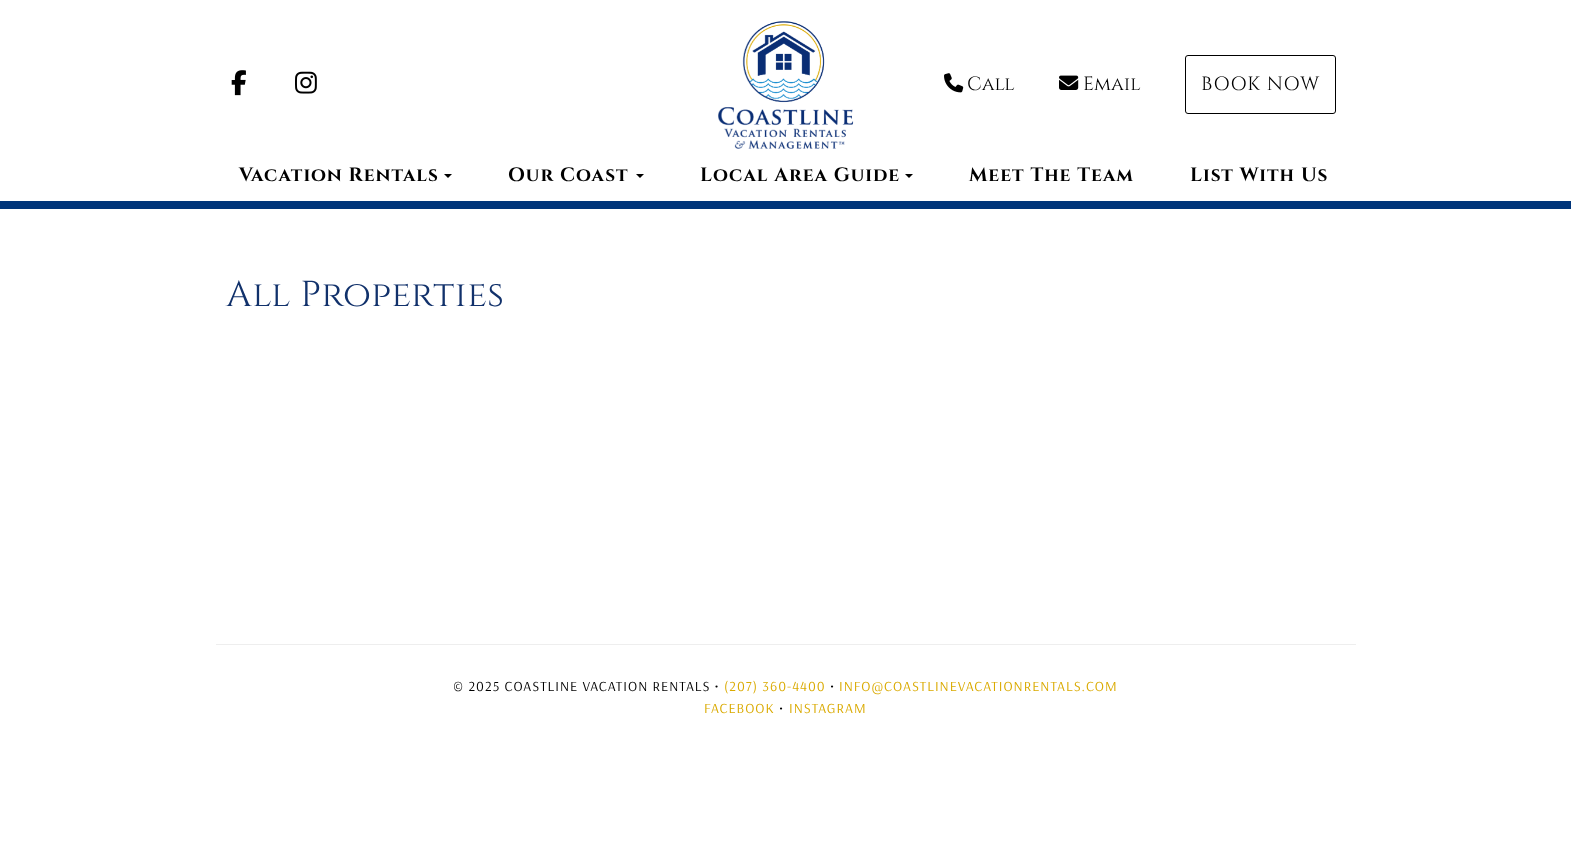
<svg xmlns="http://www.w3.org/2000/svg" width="1571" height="854">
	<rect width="100%" height="100%" fill="#FFFFFF" />
	<image x="231" y="70" width="15" height="26" href="assets/img1.png" />
	<image x="295" y="71" width="22" height="23" href="assets/img2.png" />
	<image x="718" y="21" width="136" height="128" href="assets/img3.png" />
	<image x="944" y="73" width="20" height="20" href="assets/img4.png" />
	<text x="967" y="90" font-family="Cinzel" font-size="19.25" fill="#000000">Call</text>
	<image x="1059" y="75" width="20" height="15" href="assets/img5.png" />
	<text x="1083" y="90" font-family="Cinzel" font-size="19.25" fill="#000000">Email</text>
	<rect x="1185.5" y="55.5" width="150" height="58" rx="2.5" fill="none" stroke="#000000" />
	<text x="1201" y="90" font-family="Cinzel" font-size="19.25" letter-spacing="1" fill="#000000">BOOK NOW</text>
	<text x="239" y="181" font-family="Cinzel" font-size="19.25" font-weight="700" letter-spacing="1" fill="#000000">Vacation Rentals</text>
	<path d="M444 174H452L448 178Z" fill="#000000" />
	<text x="508" y="181" font-family="Cinzel" font-size="19.25" font-weight="700" letter-spacing="1" fill="#000000">Our Coast</text>
	<path d="M636 174H644L640 178Z" fill="#000000" />
	<text x="700" y="181" font-family="Cinzel" font-size="19.25" font-weight="700" letter-spacing="1" fill="#000000">Local Area Guide</text>
	<path d="M905 174H913L909 178Z" fill="#000000" />
	<g font-family="Cinzel" font-size="19.25" font-weight="700" letter-spacing="1" fill="#000000">
		<text x="969" y="181">Meet The Team</text>
		<text x="1190" y="181">List With Us</text>
	</g>
	<rect x="0" y="201" width="1571" height="8" fill="#00357A" />
	<text x="226" y="306" font-family="Cinzel" font-size="36" letter-spacing="0.5" fill="#11316B">All Properties</text>
	<rect x="216" y="644" width="1140" height="1" fill="#EEEEEE" />
	<text x="453" y="691" font-family="Arsenal" font-size="14" letter-spacing="1" fill="#000000">© 2025 COASTLINE VACATION RENTALS •</text>
	<text x="724" y="691" font-family="Arsenal" font-size="14" letter-spacing="1" fill="#DAAA00">(207) 360-4400</text>
	<text x="830" y="691" font-family="Arsenal" font-size="14" letter-spacing="1" fill="#000000">•</text>
	<g font-family="Arsenal" font-size="14" letter-spacing="1" fill="#DAAA00">
		<text x="839" y="691">INFO@COASTLINEVACATIONRENTALS.COM</text>
		<text x="704" y="713">FACEBOOK</text>
	</g>
	<text x="779" y="713" font-family="Arsenal" font-size="14" letter-spacing="1" fill="#000000">•</text>
	<text x="789" y="713" font-family="Arsenal" font-size="14" letter-spacing="1" fill="#DAAA00">INSTAGRAM</text>
</svg>
